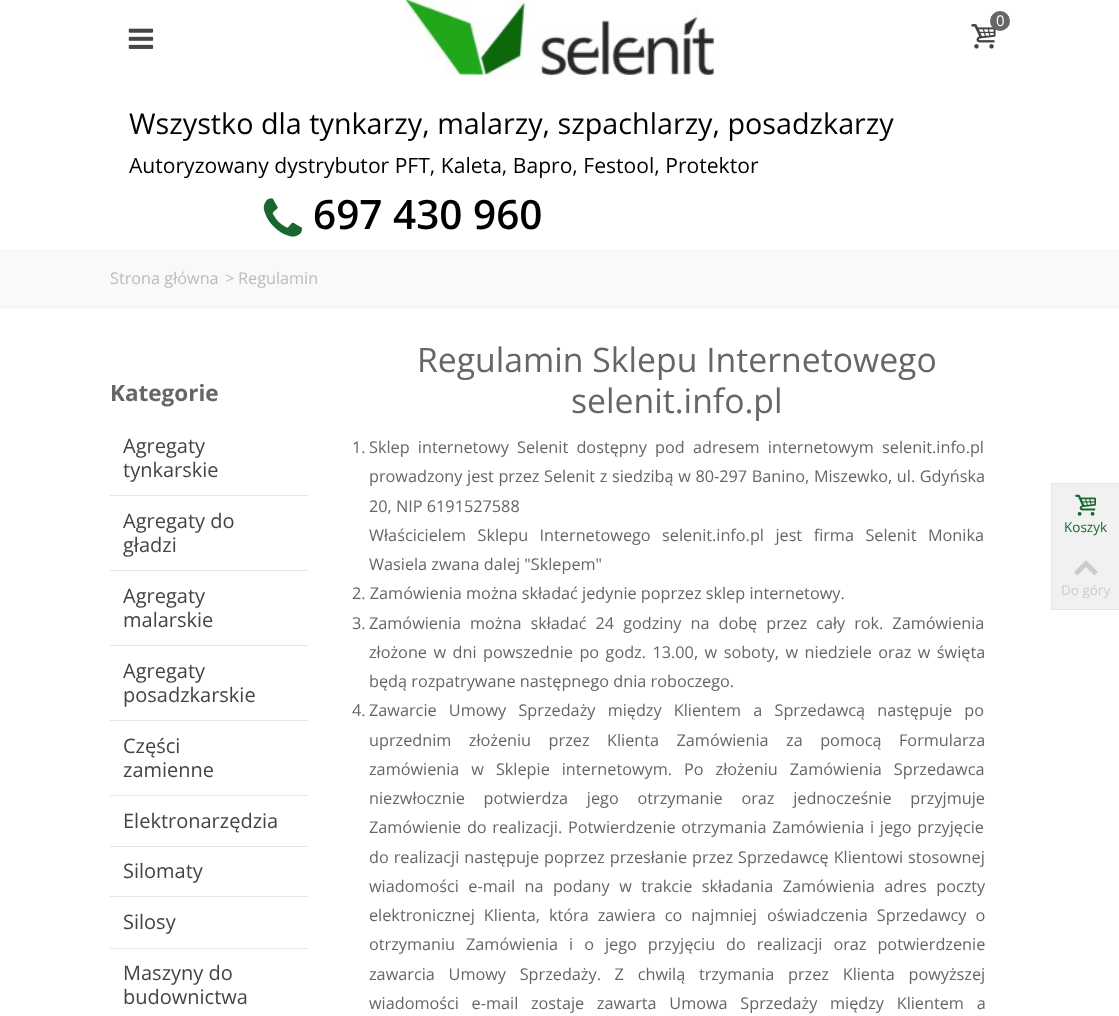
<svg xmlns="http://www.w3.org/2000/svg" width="1119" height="1016">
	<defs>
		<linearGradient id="g1" gradientUnits="userSpaceOnUse" x1="560" y1="250" x2="560" y2="308"><stop offset="0" stop-color="#F2F2F2" /><stop offset="0.05" stop-color="#F9F9F9" /><stop offset="0.95" stop-color="#F9F9F9" /><stop offset="1" stop-color="#F2F2F2" /></linearGradient>
	</defs>
	<rect width="100%" height="100%" fill="#FFFFFF" />
	<image x="406" y="0" width="308" height="75" href="assets/img1.png" />
	<image x="971" y="24" width="25" height="25" href="assets/img2.png" />
	<circle cx="1000" cy="21" r="10" fill="#666666" />
	<text x="996" y="26" font-family="Open Sans" font-size="15" fill="#FFFFFF">0</text>
	<image x="128" y="28" width="26" height="21" href="assets/img3.png" />
	<text x="129" y="134" font-family="Open Sans" font-size="28.75" fill="#000000">Wszystko dla tynkarzy, malarzy, szpachlarzy, posadzkarzy</text>
	<text x="129" y="173" font-family="Open Sans" font-size="21.1" fill="#000000">Autoryzowany dystrybutor PFT, Kaleta, Bapro, Festool, Protektor</text>
	<image x="263" y="198" width="40" height="39" href="assets/img4.png" />
	<text x="313" y="229" font-family="Open Sans" font-size="40.5" font-weight="600" fill="#000000">697 430 960</text>
	<rect x="0" y="250" width="1119" height="58" fill="url(#g1)" />
	<g font-family="Open Sans" font-size="16.25" fill="#BBBBBB">
		<text x="110" y="284">Strona główna</text>
		<text x="225" y="284">&gt;</text>
		<text x="238" y="284">Regulamin</text>
	</g>
	<text x="110" y="401" font-family="Open Sans" font-size="22.5" font-weight="700" fill="#666666">Kategorie</text>
	<rect x="110" y="495" width="198" height="1" fill="#E5E5E5" />
	<g font-family="Open Sans" font-size="20" fill="#444444">
		<text x="123" y="453">Agregaty</text>
		<text x="123" y="477">tynkarskie</text>
	</g>
	<rect x="110" y="570" width="198" height="1" fill="#E5E5E5" />
	<g font-family="Open Sans" font-size="20" fill="#444444">
		<text x="123" y="528">Agregaty do</text>
		<text x="123" y="552">gładzi</text>
	</g>
	<rect x="110" y="645" width="198" height="1" fill="#E5E5E5" />
	<g font-family="Open Sans" font-size="20" fill="#444444">
		<text x="123" y="603">Agregaty</text>
		<text x="123" y="627">malarskie</text>
	</g>
	<rect x="110" y="720" width="198" height="1" fill="#E5E5E5" />
	<g font-family="Open Sans" font-size="20" fill="#444444">
		<text x="123" y="678">Agregaty</text>
		<text x="123" y="702">posadzkarskie</text>
	</g>
	<rect x="110" y="795" width="198" height="1" fill="#E5E5E5" />
	<g font-family="Open Sans" font-size="20" fill="#444444">
		<text x="123" y="753">Części</text>
		<text x="123" y="777">zamienne</text>
	</g>
	<rect x="110" y="846" width="198" height="1" fill="#E5E5E5" />
	<text x="123" y="828" font-family="Open Sans" font-size="20" fill="#444444">Elektronarzędzia</text>
	<rect x="110" y="896" width="198" height="1" fill="#E5E5E5" />
	<text x="123" y="878" font-family="Open Sans" font-size="20" fill="#444444">Silomaty</text>
	<rect x="110" y="948" width="198" height="1" fill="#E5E5E5" />
	<g font-family="Open Sans" font-size="20" fill="#444444">
		<text x="123" y="929">Silosy</text>
		<text x="123" y="980">Maszyny do</text>
		<text x="123" y="1004">budownictwa</text>
	</g>
	<g font-family="Open Sans" font-size="33.75" fill="#666666">
		<text x="417" y="372">Regulamin Sklepu Internetowego</text>
		<text x="571" y="413">selenit.info.pl</text>
	</g>
	<g font-family="Open Sans" font-size="16.25" fill="#666666">
		<text x="352" y="453">1.</text>
		<text x="369" y="453" word-spacing="4">Sklep internetowy Selenit dostępny pod adresem internetowym selenit.info.pl</text>
		<text x="369" y="482" word-spacing="0.4">prowadzony jest przez Selenit z siedzibą w 80-297 Banino, Miszewko, ul. Gdyńska</text>
		<text x="369" y="512">20, NIP 6191527588</text>
		<text x="369" y="541" word-spacing="7.25">Właścicielem Sklepu Internetowego selenit.info.pl jest firma Selenit Monika</text>
		<text x="369" y="570">Wasiela zwana dalej "Sklepem"</text>
		<text x="352" y="599">2. Zamówienia można składać jedynie poprzez sklep internetowy.</text>
		<text x="352" y="629">3.</text>
		<text x="369" y="629" word-spacing="4.75">Zamówienia można składać 24 godziny na dobę przez cały rok. Zamówienia</text>
		<text x="369" y="658" word-spacing="2.25">złożone w dni powszednie po godz. 13.00, w soboty, w niedziele oraz w święta</text>
		<text x="369" y="687">będą rozpatrywane następnego dnia roboczego.</text>
		<text x="352" y="716">4.</text>
		<text x="369" y="716" word-spacing="8">Zawarcie Umowy Sprzedaży między Klientem a Sprzedawcą następuje po</text>
		<text x="369" y="746" word-spacing="13.25">uprzednim złożeniu przez Klienta Zamówienia za pomocą Formularza</text>
		<text x="369" y="775" word-spacing="7.75">zamówienia w Sklepie internetowym. Po złożeniu Zamówienia Sprzedawca</text>
		<text x="369" y="804" word-spacing="14.5">niezwłocznie potwierdza jego otrzymanie oraz jednocześnie przyjmuje</text>
		<text x="369" y="833" word-spacing="1.5">Zamówienie do realizacji. Potwierdzenie otrzymania Zamówienia i jego przyjęcie</text>
		<text x="369" y="863" word-spacing="0.75">do realizacji następuje poprzez przesłanie przez Sprzedawcę Klientowi stosownej</text>
		<text x="369" y="892" word-spacing="5.25">wiadomości e-mail na podany w trakcie składania Zamówienia adres poczty</text>
		<text x="369" y="921" word-spacing="4.75">elektronicznej Klienta, która zawiera co najmniej</text>
		<text x="767" y="921" word-spacing="4.75">oświadczenia Sprzedawcy o</text>
		<text x="369" y="950" word-spacing="6.75">otrzymaniu Zamówienia i o jego przyjęciu do realizacji oraz potwierdzenie</text>
		<text x="369" y="980" word-spacing="9.5">zawarcia Umowy Sprzedaży. Z chwilą trzymania przez Klienta powyższej</text>
		<text x="369" y="1009" word-spacing="8.5">wiadomości e-mail zostaje zawarta Umowa Sprzedaży między Klientem a</text>
	</g>
	<rect x="1052" y="484" width="67" height="125" fill="#F1F1F1" />
	<rect x="1051" y="483" width="68" height="1" fill="#E5E5E5" />
	<rect x="1051" y="609" width="68" height="1" fill="#E5E5E5" />
	<rect x="1051" y="484" width="1" height="125" fill="#E5E5E5" />
	<image x="1075" y="494" width="21" height="22" href="assets/img5.png" />
	<text x="1064" y="532" font-family="Open Sans" font-size="13.5" fill="#18672E">Koszyk</text>
	<path d="M1074 572L1086 560L1098 572L1094.5 575.5L1086 567L1077.5 575.5Z" fill="#CCCCCC" />
	<text x="1061" y="595" font-family="Open Sans" font-size="13.5" fill="#CCCCCC">Do góry</text>
</svg>
